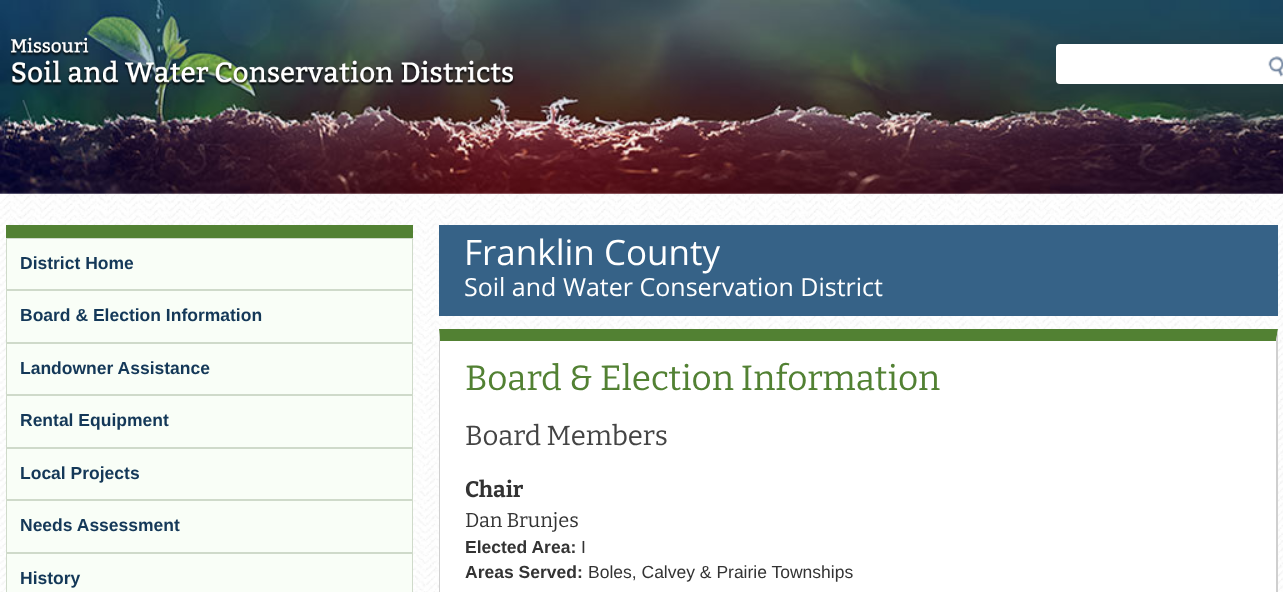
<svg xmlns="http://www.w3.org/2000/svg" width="1283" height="592">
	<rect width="100%" height="100%" fill="#FFFFFF" />
	<image x="0" y="193" width="1283" height="399" href="assets/img1.png" />
	<image x="0" y="0" width="1283" height="194" href="assets/img2.png" />
	<image x="10" y="37" width="505" height="49" href="assets/img3.png" />
	<rect x="1056" y="44" width="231" height="40" rx="4" fill="#FFFFFF" />
	<image x="1268" y="56" width="15" height="21" href="assets/img4.png" />
	<rect x="6" y="225" width="407" height="13" fill="#528133" />
	<rect x="6.5" y="238.5" width="406" height="51" fill="#F9FEF7" stroke="#CFDACA" />
	<text x="20" y="269" font-family="Liberation Sans" font-size="17.5" font-weight="700" fill="#143858">District Home</text>
	<rect x="6.5" y="290.5" width="406" height="52" fill="#F9FEF7" stroke="#CFDACA" />
	<text x="20" y="321" font-family="Liberation Sans" font-size="17.5" font-weight="700" fill="#143858">Board &amp; Election Information</text>
	<rect x="6.5" y="343.5" width="406" height="51" fill="#F9FEF7" stroke="#CFDACA" />
	<text x="20" y="374" font-family="Liberation Sans" font-size="17.5" font-weight="700" fill="#143858">Landowner Assistance</text>
	<rect x="6.5" y="395.5" width="406" height="52" fill="#F9FEF7" stroke="#CFDACA" />
	<text x="20" y="426" font-family="Liberation Sans" font-size="17.5" font-weight="700" fill="#143858">Rental Equipment</text>
	<rect x="6.5" y="448.5" width="406" height="51" fill="#F9FEF7" stroke="#CFDACA" />
	<text x="20" y="479" font-family="Liberation Sans" font-size="17.5" font-weight="700" fill="#143858">Local Projects</text>
	<rect x="6.5" y="500.5" width="406" height="52" fill="#F9FEF7" stroke="#CFDACA" />
	<text x="20" y="531" font-family="Liberation Sans" font-size="17.5" font-weight="700" fill="#143858">Needs Assessment</text>
	<rect x="6.5" y="553.5" width="406" height="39" fill="#F9FEF7" stroke="#CFDACA" />
	<text x="20" y="584" font-family="Liberation Sans" font-size="17.5" font-weight="700" fill="#143858">History</text>
	<rect x="439" y="225" width="839" height="91" fill="#366287" />
	<text x="464" y="265" font-family="Open Sans" font-size="35" fill="#FFFFFF">Franklin County</text>
	<text x="464" y="296" font-family="Open Sans" font-size="25" fill="#FFFFFF">Soil and Water Conservation District</text>
	<rect x="440" y="341" width="836" height="251" fill="#FFFFFF" />
	<path d="M439 329H1278L1276 341H440Z" fill="#528133" />
	<path d="M1278 329V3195L1276 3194V341Z" fill="#CFCFCF" />
	<path d="M439 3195V329L440 341V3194Z" fill="#CFCFCF" />
	<text x="465" y="390" font-family="Bitter" font-size="35" fill="#528133">Board &amp; Election Information</text>
	<text x="465" y="445" font-family="Bitter" font-size="27.5" fill="#444444">Board Members</text>
	<text x="465" y="497" font-family="Bitter" font-size="22.5" font-weight="700" fill="#333333">Chair</text>
	<text x="465" y="527" font-family="Bitter" font-size="20" fill="#333333">Dan Brunjes</text>
	<text x="465" y="553" font-family="Liberation Sans" font-size="17.5" font-weight="700" fill="#333333">Elected Area:</text>
	<text x="581" y="553" font-family="Liberation Sans" font-size="17.5" fill="#333333">I</text>
	<text x="465" y="578" font-family="Liberation Sans" font-size="17.5" font-weight="700" fill="#333333">Areas Served:</text>
	<text x="588" y="578" font-family="Liberation Sans" font-size="17.5" fill="#333333">Boles, Calvey &amp; Prairie Townships</text>
</svg>
